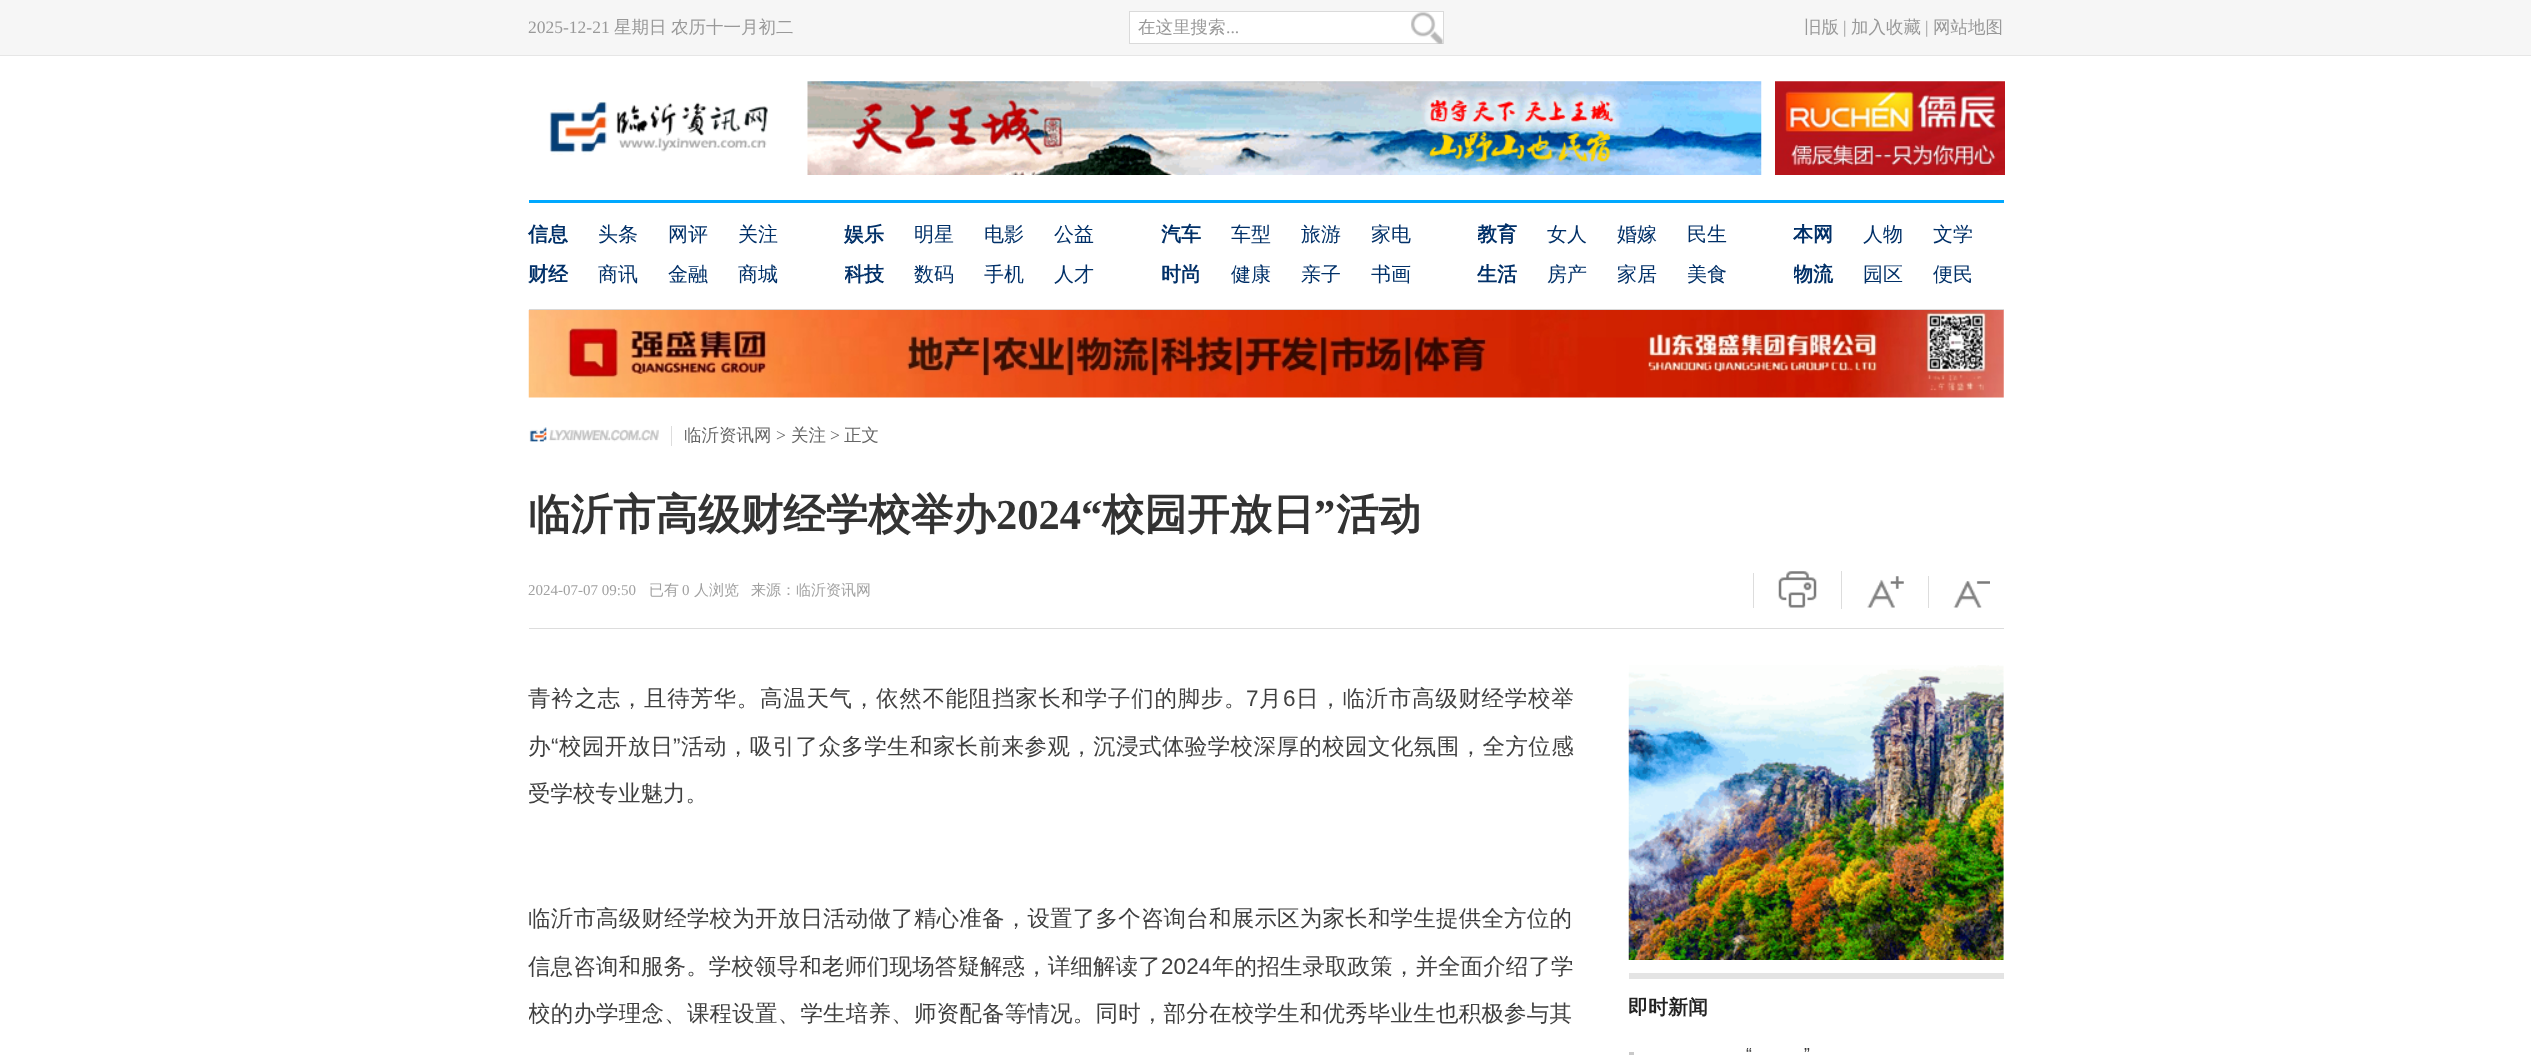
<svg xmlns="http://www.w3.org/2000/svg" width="2531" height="1055">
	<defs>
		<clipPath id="clip1"><rect x="845" y="215" width="280" height="80" /></clipPath>
		<clipPath id="clip2"><rect x="1478" y="215" width="280" height="80" /></clipPath>
		<clipPath id="clip3"><rect x="1794" y="215" width="210" height="80" /></clipPath>
		<clipPath id="clip4"><rect x="529" y="648" width="1475" height="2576" /></clipPath>
	</defs>
	<rect width="100%" height="100%" fill="#FFFFFF" />
	<rect x="0" y="0" width="2531" height="55" fill="#F6F6F6" />
	<rect x="0" y="55" width="2531" height="1" fill="#E6E6E6" />
	<text x="528" y="33" font-family="Liberation Serif" font-size="17.5" fill="#999999">2025-12-21</text>
	<g font-family="WenQuanYi Zen Hei" font-size="17.5" font-weight="500" fill="#999999">
		<text x="614" y="33">星期日</text>
		<text x="671" y="33">农历十一月初二</text>
	</g>
	<rect x="1129.5" y="11.5" width="314" height="32" fill="#FFFFFF" stroke="#DADADA" />
	<text x="1138" y="33" font-family="WenQuanYi Zen Hei" font-size="17.5" font-weight="500" fill="#999999">在这里搜索</text>
	<text x="1226" y="33" font-family="Liberation Serif" font-size="17.5" fill="#999999">...</text>
	<image x="1411" y="12" width="32" height="32" href="assets/img1.png" />
	<text x="1804" y="33" font-family="WenQuanYi Zen Hei" font-size="17.5" font-weight="500" fill="#999999">旧版</text>
	<text x="1843" y="33" font-family="Liberation Serif" font-size="17.5" fill="#999999">|</text>
	<text x="1851" y="33" font-family="WenQuanYi Zen Hei" font-size="17.5" font-weight="500" fill="#999999">加入收藏</text>
	<text x="1925" y="33" font-family="Liberation Serif" font-size="17.5" fill="#999999">|</text>
	<text x="1933" y="33" font-family="WenQuanYi Zen Hei" font-size="17.5" font-weight="500" fill="#999999">网站地图</text>
	<image x="549" y="101" width="219" height="54" href="assets/img2.png" />
	<image x="807" y="81" width="955" height="94" href="assets/img3.png" />
	<image x="1775" y="81" width="230" height="94" href="assets/img4.png" />
	<rect x="529" y="200" width="1475" height="3" fill="#00A8FF" />
	<rect x="529" y="309" width="1475" height="1" fill="#D8D8D8" />
	<text x="528" y="241" font-family="WenQuanYi Zen Hei" font-size="20" font-weight="700" fill="#013068">信息</text>
	<g font-family="WenQuanYi Zen Hei" font-size="20" font-weight="500" fill="#013068">
		<text x="598" y="241">头条</text>
		<text x="668" y="241">网评</text>
		<text x="738" y="241">关注</text>
	</g>
	<text x="528" y="281" font-family="WenQuanYi Zen Hei" font-size="20" font-weight="700" fill="#013068">财经</text>
	<g font-family="WenQuanYi Zen Hei" font-size="20" font-weight="500" fill="#013068">
		<text x="598" y="281">商讯</text>
		<text x="668" y="281">金融</text>
		<text x="738" y="281">商城</text>
	</g>
	<text x="844" y="241" font-family="WenQuanYi Zen Hei" font-size="20" font-weight="700" fill="#013068">娱乐</text>
	<g font-family="WenQuanYi Zen Hei" font-size="20" font-weight="500" fill="#013068">
		<text x="914" y="241">明星</text>
		<text x="984" y="241">电影</text>
		<text x="1054" y="241">公益</text>
	</g>
	<g clip-path="url(#clip1)">
		<text x="844" y="281" font-family="WenQuanYi Zen Hei" font-size="20" font-weight="700" fill="#013068">科技</text>
	</g>
	<g font-family="WenQuanYi Zen Hei" font-size="20" font-weight="500" fill="#013068">
		<text x="914" y="281">数码</text>
		<text x="984" y="281">手机</text>
		<text x="1054" y="281">人才</text>
	</g>
	<text x="1161" y="241" font-family="WenQuanYi Zen Hei" font-size="20" font-weight="700" fill="#013068">汽车</text>
	<g font-family="WenQuanYi Zen Hei" font-size="20" font-weight="500" fill="#013068">
		<text x="1231" y="241">车型</text>
		<text x="1301" y="241">旅游</text>
		<text x="1371" y="241">家电</text>
	</g>
	<text x="1161" y="281" font-family="WenQuanYi Zen Hei" font-size="20" font-weight="700" fill="#013068">时尚</text>
	<g font-family="WenQuanYi Zen Hei" font-size="20" font-weight="500" fill="#013068">
		<text x="1231" y="281">健康</text>
		<text x="1301" y="281">亲子</text>
		<text x="1371" y="281">书画</text>
	</g>
	<g clip-path="url(#clip2)">
		<text x="1477" y="241" font-family="WenQuanYi Zen Hei" font-size="20" font-weight="700" fill="#013068">教育</text>
	</g>
	<g font-family="WenQuanYi Zen Hei" font-size="20" font-weight="500" fill="#013068">
		<text x="1547" y="241">女人</text>
		<text x="1617" y="241">婚嫁</text>
		<text x="1687" y="241">民生</text>
	</g>
	<text x="1477" y="281" font-family="WenQuanYi Zen Hei" font-size="20" font-weight="700" fill="#013068">生活</text>
	<g font-family="WenQuanYi Zen Hei" font-size="20" font-weight="500" fill="#013068">
		<text x="1547" y="281">房产</text>
		<text x="1617" y="281">家居</text>
		<text x="1687" y="281">美食</text>
	</g>
	<text x="1793" y="241" font-family="WenQuanYi Zen Hei" font-size="20" font-weight="700" fill="#013068">本网</text>
	<g font-family="WenQuanYi Zen Hei" font-size="20" font-weight="500" fill="#013068">
		<text x="1863" y="241">人物</text>
		<text x="1933" y="241">文学</text>
	</g>
	<g clip-path="url(#clip3)">
		<text x="1793" y="281" font-family="WenQuanYi Zen Hei" font-size="20" font-weight="700" fill="#013068">物流</text>
	</g>
	<g font-family="WenQuanYi Zen Hei" font-size="20" font-weight="500" fill="#013068">
		<text x="1863" y="281">园区</text>
		<text x="1933" y="281">便民</text>
	</g>
	<image x="528" y="310" width="1476" height="88" href="assets/img5.png" />
	<rect x="671" y="426" width="1" height="20" fill="#DDDDDD" />
	<image x="529" y="427" width="130" height="15" href="assets/img6.png" />
	<text x="684" y="441" font-family="WenQuanYi Zen Hei" font-size="17.5" font-weight="500" fill="#666666">临沂资讯网</text>
	<text x="776" y="441" font-family="Liberation Serif" font-size="17.5" fill="#666666">&gt;</text>
	<text x="791" y="441" font-family="WenQuanYi Zen Hei" font-size="17.5" font-weight="500" fill="#666666">关注</text>
	<text x="830" y="441" font-family="Liberation Serif" font-size="17.5" fill="#666666">&gt;</text>
	<text x="844" y="441" font-family="WenQuanYi Zen Hei" font-size="17.5" font-weight="500" fill="#666666">正文</text>
	<rect x="529" y="628" width="1475" height="1" fill="#DDDDDD" />
	<text x="528" y="529" font-family="WenQuanYi Zen Hei" font-size="42.5" font-weight="700" fill="#333333">临沂市高级财经学校举办</text>
	<text x="996" y="529" font-family="Liberation Serif" font-size="42.5" font-weight="700" fill="#333333">2024“</text>
	<text x="1102" y="529" font-family="WenQuanYi Zen Hei" font-size="42.5" font-weight="700" fill="#333333">校园开放日</text>
	<text x="1314" y="529" font-family="Liberation Serif" font-size="42.5" font-weight="700" fill="#333333">”</text>
	<text x="1336" y="529" font-family="WenQuanYi Zen Hei" font-size="42.5" font-weight="700" fill="#333333">活动</text>
	<text x="528" y="595" font-family="Liberation Serif" font-size="15" fill="#A1A1A1">2024-07-07 09:50</text>
	<text x="649" y="595" font-family="WenQuanYi Zen Hei" font-size="15" font-weight="500" fill="#A1A1A1">已有</text>
	<text x="682" y="595" font-family="Liberation Serif" font-size="15" fill="#A1A1A1">0</text>
	<g font-family="WenQuanYi Zen Hei" font-size="15" font-weight="500" fill="#A1A1A1">
		<text x="694" y="595">人浏览</text>
		<text x="751" y="595">来源：临沂资讯网</text>
	</g>
	<rect x="1753" y="573" width="1" height="35" fill="#DDDDDD" />
	<rect x="1841" y="571" width="1" height="38" fill="#DDDDDD" />
	<image x="1778" y="571" width="39" height="37" href="assets/img7.png" />
	<rect x="1928" y="576" width="1" height="32" fill="#DDDDDD" />
	<image x="1867" y="576" width="37" height="32" href="assets/img8.png" />
	<image x="1953" y="581" width="37" height="27" href="assets/img9.png" />
	<text x="528" y="706" font-family="WenQuanYi Zen Hei" font-size="22.5" font-weight="500" letter-spacing="0.7" fill="#404040">青衿之志，且待芳华。高温天气，依然不能阻挡家长和学子们的脚步。</text>
	<text x="1246" y="706" font-family="Liberation Sans" font-size="22.5" letter-spacing="0.7" fill="#404040">7</text>
	<text x="1259" y="706" font-family="WenQuanYi Zen Hei" font-size="22.5" font-weight="500" letter-spacing="0.7" fill="#404040">月</text>
	<text x="1283" y="706" font-family="Liberation Sans" font-size="22.5" letter-spacing="0.7" fill="#404040">6</text>
	<text x="1296" y="706" font-family="WenQuanYi Zen Hei" font-size="22.5" font-weight="500" letter-spacing="0.7" fill="#404040">日，临沂市高级财经学校举</text>
	<text x="528" y="754" font-family="WenQuanYi Zen Hei" font-size="22.5" font-weight="500" letter-spacing="0.4" fill="#404040">办</text>
	<text x="551" y="754" font-family="Liberation Sans" font-size="22.5" letter-spacing="0.4" fill="#404040">“</text>
	<text x="559" y="754" font-family="WenQuanYi Zen Hei" font-size="22.5" font-weight="500" letter-spacing="0.4" fill="#404040">校园开放日</text>
	<text x="673" y="754" font-family="Liberation Sans" font-size="22.5" letter-spacing="0.4" fill="#404040">”</text>
	<text x="681" y="754" font-family="WenQuanYi Zen Hei" font-size="22.5" font-weight="500" letter-spacing="0.4" fill="#404040">活动，吸引了众多学生和家长前来参观，沉浸式体验学校深厚的校园文化氛围，全方位感</text>
	<text x="528" y="801" font-family="WenQuanYi Zen Hei" font-size="22.5" font-weight="500" fill="#404040">受学校专业魅力。</text>
	<text x="528" y="926" font-family="WenQuanYi Zen Hei" font-size="22.5" font-weight="500" letter-spacing="0.2" fill="#404040">临沂市高级财经学校为开放日活动做了精心准备，设置了多个咨询台和展示区为家长和学生提供全方位的</text>
	<text x="528" y="974" font-family="WenQuanYi Zen Hei" font-size="22.5" font-weight="500" letter-spacing="0.1" fill="#404040">信息咨询和服务。学校领导和老师们现场答疑解惑，详细解读了</text>
	<text x="1161" y="974" font-family="Liberation Sans" font-size="22.5" letter-spacing="0.1" fill="#404040">2024</text>
	<text x="1212" y="974" font-family="WenQuanYi Zen Hei" font-size="22.5" font-weight="500" letter-spacing="0.1" fill="#404040">年的招生录取政策，并全面介绍了学</text>
	<g clip-path="url(#clip4)">
		<text x="528" y="1021" font-family="WenQuanYi Zen Hei" font-size="22.5" font-weight="500" letter-spacing="0.2" fill="#404040">校的办学理念、课程设置、学生培养、师资配备等情况。同时，部分在校学生和优秀毕业生也积极参与其</text>
	</g>
	<image x="1628" y="665" width="376" height="295" href="assets/img10.png" />
	<rect x="1629" y="973" width="375" height="6" fill="#E4E4E4" />
	<text x="1628" y="1014" font-family="WenQuanYi Zen Hei" font-size="20" font-weight="700" fill="#222222">即时新闻</text>
	<rect x="1629" y="1052" width="5" height="3" fill="#C9C9C9" />
	<g font-family="Liberation Sans" font-size="17.5" fill="#333333">
		<text x="1746" y="1060">“</text>
		<text x="1804" y="1060">”</text>
	</g>
</svg>
